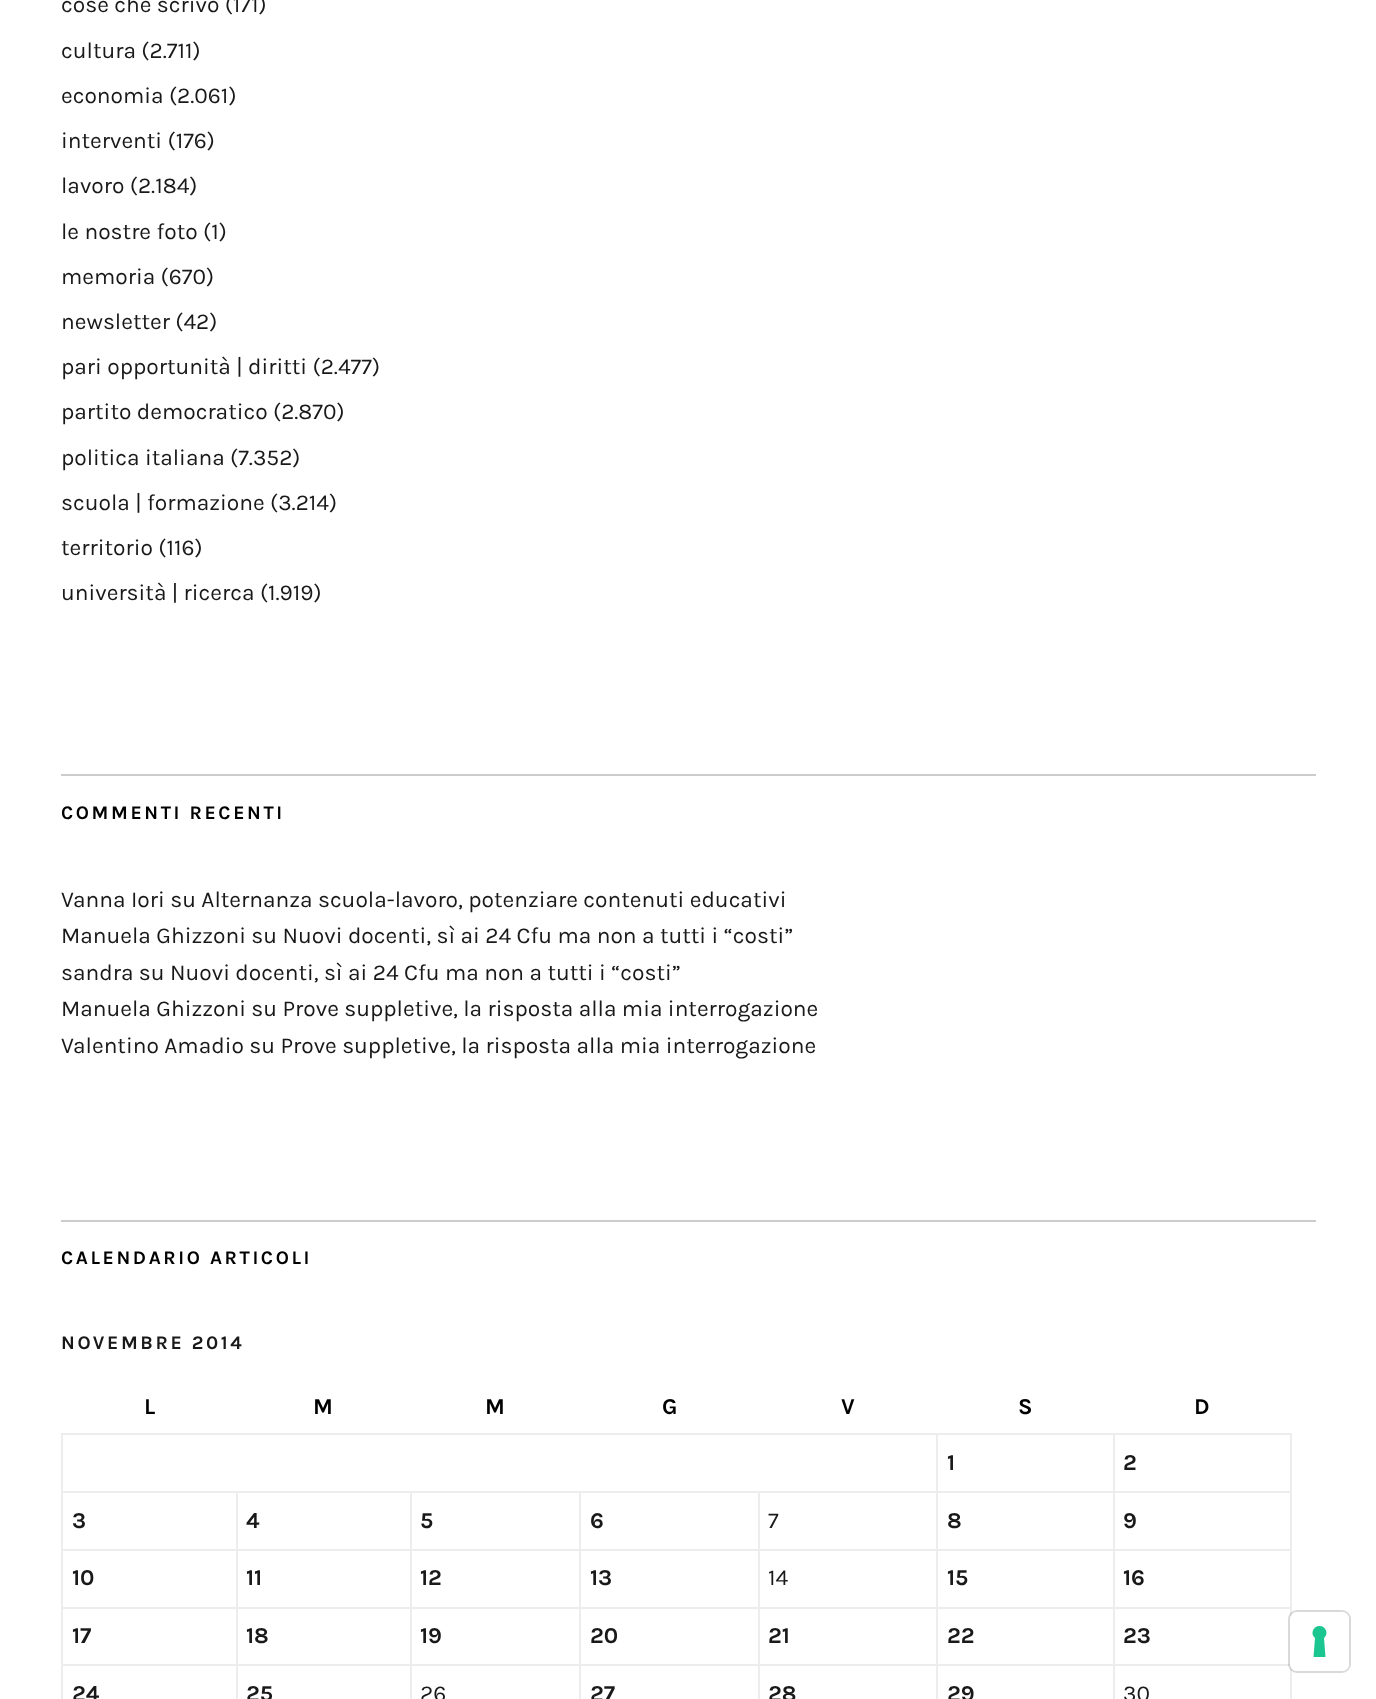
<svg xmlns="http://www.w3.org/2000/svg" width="1376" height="1699">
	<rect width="100%" height="100%" fill="#FFFFFF" />
	<rect x="61" y="774" width="1255" height="2" fill="#CCCCCC" />
	<g font-family="Karla" font-size="22.75" fill="#191919">
		<text x="61" y="12">cose che scrivo (171)</text>
		<text x="61" y="58">cultura (2.711)</text>
		<text x="61" y="103">economia (2.061)</text>
		<text x="61" y="148">interventi (176)</text>
		<text x="61" y="193">lavoro (2.184)</text>
		<text x="61" y="239">le nostre foto (1)</text>
		<text x="61" y="284">memoria (670)</text>
		<text x="61" y="329">newsletter (42)</text>
		<text x="61" y="374">pari opportunità | diritti (2.477)</text>
		<text x="61" y="419">partito democratico (2.870)</text>
		<text x="61" y="465">politica italiana (7.352)</text>
		<text x="61" y="510">scuola | formazione (3.214)</text>
		<text x="61" y="555">territorio (116)</text>
		<text x="61" y="600">università | ricerca (1.919)</text>
	</g>
	<rect x="61" y="1220" width="1255" height="2" fill="#CCCCCC" />
	<text x="61" y="819" font-family="Karla" font-size="19.25" font-weight="700" letter-spacing="2.6" fill="#000000">COMMENTI RECENTI</text>
	<g font-family="Karla" font-size="22.75" fill="#191919">
		<text x="61" y="907">Vanna Iori su Alternanza scuola-lavoro, potenziare contenuti educativi</text>
		<text x="61" y="943">Manuela Ghizzoni su Nuovi docenti, sì ai 24 Cfu ma non a tutti i “costi”</text>
		<text x="61" y="980">sandra su Nuovi docenti, sì ai 24 Cfu ma non a tutti i “costi”</text>
		<text x="61" y="1016">Manuela Ghizzoni su Prove suppletive, la risposta alla mia interrogazione</text>
		<text x="61" y="1053">Valentino Amadio su Prove suppletive, la risposta alla mia interrogazione</text>
	</g>
	<text x="61" y="1264" font-family="Karla" font-size="19.25" font-weight="700" letter-spacing="2.6" fill="#000000">CALENDARIO ARTICOLI</text>
	<text x="61" y="1349" font-family="Karla" font-size="19.25" font-weight="700" letter-spacing="2.6" fill="#191919">NOVEMBRE 2014</text>
	<g font-family="Karla" font-size="22.75" font-weight="700" fill="#000000">
		<text x="144" y="1414">L</text>
		<text x="313" y="1414">M</text>
		<text x="485" y="1414">M</text>
		<text x="662" y="1414">G</text>
		<text x="841" y="1414">V</text>
		<text x="1018" y="1414">S</text>
		<text x="1194" y="1414">D</text>
	</g>
	<rect x="1113" y="1433" width="179" height="2" fill="#EDEDED" />
	<rect x="1113" y="1491" width="179" height="2" fill="#EDEDED" />
	<rect x="1113" y="1549" width="179" height="2" fill="#EDEDED" />
	<rect x="1113" y="1607" width="179" height="2" fill="#EDEDED" />
	<rect x="1113" y="1664" width="179" height="2" fill="#EDEDED" />
	<rect x="1113" y="1664" width="2" height="35" fill="#EDEDED" />
	<rect x="936" y="1664" width="179" height="2" fill="#EDEDED" />
	<rect x="1113" y="1607" width="2" height="59" fill="#EDEDED" />
	<rect x="936" y="1607" width="179" height="2" fill="#EDEDED" />
	<rect x="1113" y="1549" width="2" height="59" fill="#EDEDED" />
	<rect x="936" y="1549" width="179" height="2" fill="#EDEDED" />
	<rect x="1113" y="1491" width="2" height="60" fill="#EDEDED" />
	<rect x="936" y="1491" width="179" height="2" fill="#EDEDED" />
	<rect x="1113" y="1433" width="2" height="60" fill="#EDEDED" />
	<rect x="936" y="1433" width="179" height="2" fill="#EDEDED" />
	<rect x="936" y="1664" width="2" height="35" fill="#EDEDED" />
	<rect x="758" y="1664" width="180" height="2" fill="#EDEDED" />
	<rect x="936" y="1607" width="2" height="59" fill="#EDEDED" />
	<rect x="758" y="1607" width="180" height="2" fill="#EDEDED" />
	<rect x="936" y="1549" width="2" height="59" fill="#EDEDED" />
	<rect x="758" y="1549" width="180" height="2" fill="#EDEDED" />
	<rect x="936" y="1491" width="2" height="60" fill="#EDEDED" />
	<rect x="758" y="1491" width="180" height="2" fill="#EDEDED" />
	<rect x="936" y="1433" width="2" height="60" fill="#EDEDED" />
	<rect x="61" y="1433" width="877" height="2" fill="#EDEDED" />
	<rect x="758" y="1664" width="2" height="35" fill="#EDEDED" />
	<rect x="579" y="1664" width="181" height="2" fill="#EDEDED" />
	<rect x="758" y="1607" width="2" height="59" fill="#EDEDED" />
	<rect x="579" y="1607" width="181" height="2" fill="#EDEDED" />
	<rect x="758" y="1549" width="2" height="59" fill="#EDEDED" />
	<rect x="579" y="1549" width="181" height="2" fill="#EDEDED" />
	<rect x="758" y="1491" width="2" height="60" fill="#EDEDED" />
	<rect x="579" y="1491" width="181" height="2" fill="#EDEDED" />
	<rect x="579" y="1664" width="2" height="35" fill="#EDEDED" />
	<rect x="410" y="1664" width="171" height="2" fill="#EDEDED" />
	<rect x="579" y="1607" width="2" height="59" fill="#EDEDED" />
	<rect x="410" y="1607" width="171" height="2" fill="#EDEDED" />
	<rect x="579" y="1549" width="2" height="59" fill="#EDEDED" />
	<rect x="410" y="1549" width="171" height="2" fill="#EDEDED" />
	<rect x="579" y="1491" width="2" height="60" fill="#EDEDED" />
	<rect x="410" y="1491" width="171" height="2" fill="#EDEDED" />
	<rect x="410" y="1664" width="2" height="35" fill="#EDEDED" />
	<rect x="236" y="1664" width="175" height="2" fill="#EDEDED" />
	<rect x="410" y="1607" width="2" height="59" fill="#EDEDED" />
	<rect x="236" y="1607" width="175" height="2" fill="#EDEDED" />
	<rect x="410" y="1549" width="2" height="59" fill="#EDEDED" />
	<rect x="236" y="1549" width="175" height="2" fill="#EDEDED" />
	<rect x="410" y="1491" width="2" height="60" fill="#EDEDED" />
	<rect x="236" y="1491" width="175" height="2" fill="#EDEDED" />
	<rect x="236" y="1664" width="2" height="35" fill="#EDEDED" />
	<rect x="61" y="1664" width="177" height="2" fill="#EDEDED" />
	<rect x="236" y="1607" width="2" height="59" fill="#EDEDED" />
	<rect x="61" y="1607" width="177" height="2" fill="#EDEDED" />
	<rect x="236" y="1549" width="2" height="59" fill="#EDEDED" />
	<rect x="61" y="1549" width="177" height="2" fill="#EDEDED" />
	<rect x="236" y="1491" width="2" height="60" fill="#EDEDED" />
	<rect x="61" y="1491" width="177" height="2" fill="#EDEDED" />
	<rect x="61" y="1664" width="2" height="35" fill="#EDEDED" />
	<rect x="61" y="1607" width="2" height="59" fill="#EDEDED" />
	<rect x="61" y="1549" width="2" height="59" fill="#EDEDED" />
	<rect x="61" y="1491" width="2" height="60" fill="#EDEDED" />
	<rect x="61" y="1433" width="2" height="60" fill="#EDEDED" />
	<text x="947" y="1470" font-family="Karla" font-size="22.75" font-weight="700" fill="#191919">1</text>
	<rect x="1290" y="1664" width="2" height="35" fill="#EDEDED" />
	<rect x="1290" y="1607" width="2" height="59" fill="#EDEDED" />
	<rect x="1290" y="1549" width="2" height="59" fill="#EDEDED" />
	<rect x="1290" y="1491" width="2" height="60" fill="#EDEDED" />
	<rect x="1290" y="1433" width="2" height="60" fill="#EDEDED" />
	<g font-family="Karla" font-size="22.75" font-weight="700" fill="#191919">
		<text x="1123" y="1470">2</text>
		<text x="72" y="1528">3</text>
		<text x="246" y="1528">4</text>
		<text x="420" y="1528">5</text>
		<text x="590" y="1528">6</text>
	</g>
	<text x="768" y="1528" font-family="Karla" font-size="22.75" fill="#191919">7</text>
	<g font-family="Karla" font-size="22.75" font-weight="700" fill="#191919">
		<text x="947" y="1528">8</text>
		<text x="1123" y="1528">9</text>
		<text x="72" y="1585">10</text>
		<text x="246" y="1585">11</text>
		<text x="420" y="1585">12</text>
		<text x="590" y="1585">13</text>
	</g>
	<text x="768" y="1585" font-family="Karla" font-size="22.75" fill="#191919">14</text>
	<g font-family="Karla" font-size="22.75" font-weight="700" fill="#191919">
		<text x="947" y="1585">15</text>
		<text x="1123" y="1585">16</text>
		<text x="72" y="1643">17</text>
		<text x="246" y="1643">18</text>
		<text x="420" y="1643">19</text>
		<text x="590" y="1643">20</text>
		<text x="768" y="1643">21</text>
		<text x="947" y="1643">22</text>
		<text x="1123" y="1643">23</text>
		<text x="72" y="1701">24</text>
		<text x="246" y="1701">25</text>
	</g>
	<text x="420" y="1701" font-family="Karla" font-size="22.75" fill="#191919">26</text>
	<g font-family="Karla" font-size="22.75" font-weight="700" fill="#191919">
		<text x="590" y="1701">27</text>
		<text x="768" y="1701">28</text>
		<text x="947" y="1701">29</text>
	</g>
	<text x="1123" y="1701" font-family="Karla" font-size="22.75" fill="#191919">30</text>
	<rect x="1289" y="1611" width="61" height="61" rx="8" fill="none" stroke="#000000" stroke-opacity="0.15" stroke-width="2" />
	<rect x="1290" y="1612" width="59" height="59" rx="7" fill="#FFFFFF" />
	<path d="M1319.5 1626C1326 1626 1329 1634 1324 1638L1325.5 1657H1313.5L1315 1638C1310 1634 1313 1626 1319.5 1626Z" fill="#1CC691" fill-rule="evenodd" />
</svg>
